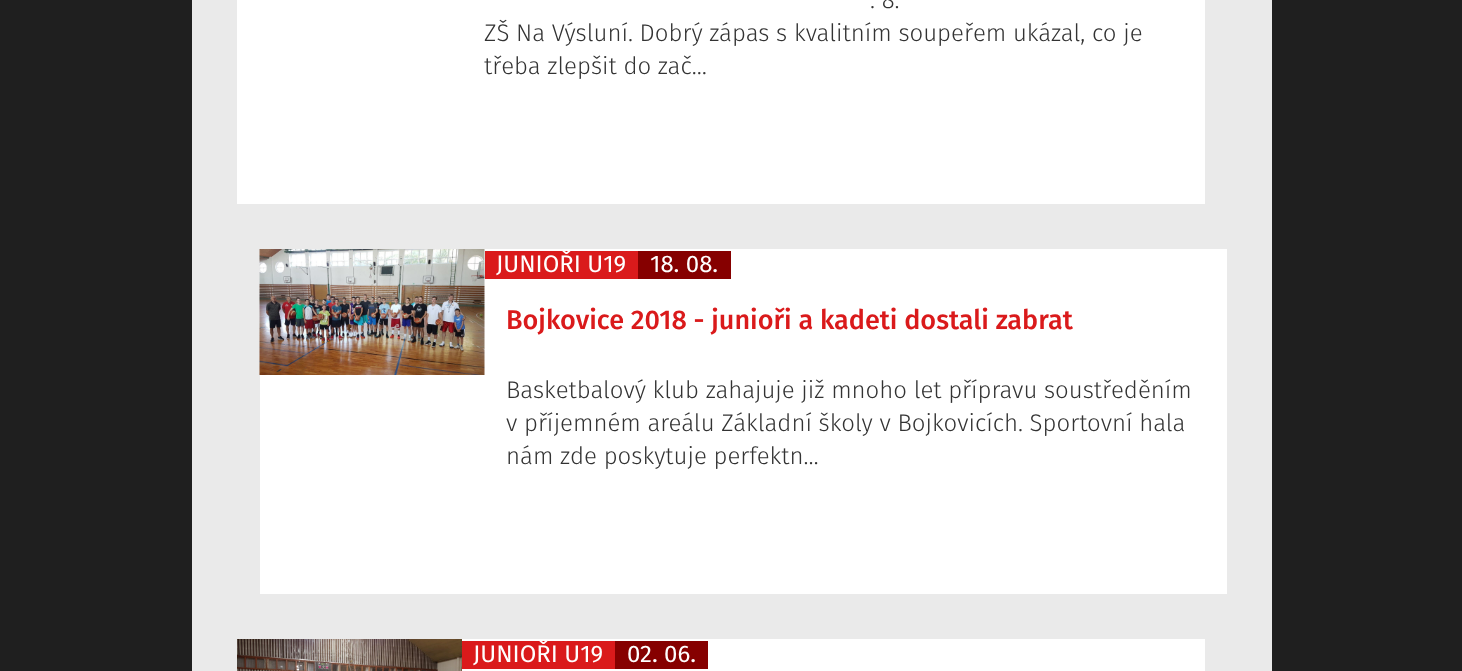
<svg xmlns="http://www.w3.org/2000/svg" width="1462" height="671">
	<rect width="100%" height="100%" fill="#1F1F1F" />
	<rect x="192" y="0" width="1080" height="671" fill="#EAEAEA" />
	<rect x="237" y="0" width="968" height="204" fill="#FFFFFF" />
	<g font-family="Fira Sans" font-size="24" font-weight="300" fill="#333333">
		<text x="870" y="8">. 8.</text>
		<text x="484" y="41">ZŠ Na Výsluní. Dobrý zápas s kvalitním soupeřem ukázal, co je</text>
		<text x="484" y="74">třeba zlepšit do zač…</text>
	</g>
	<rect x="260" y="249" width="967" height="345" fill="#FFFFFF" />
	<image x="259" y="249" width="226" height="126" href="assets/img1.png" />
	<rect x="485" y="251" width="153" height="28" fill="#DA1A1B" />
	<text x="496" y="272" font-family="Fira Sans" font-size="24" fill="#FFFFFF">JUNIOŘI U19</text>
	<rect x="638" y="251" width="93" height="28" fill="#860000" />
	<text x="650" y="272" font-family="Fira Sans" font-size="24" fill="#FFFFFF">18. 08.</text>
	<text x="506" y="329" font-family="Fira Sans" font-size="27" font-weight="500" fill="#DA1A1B">Bojkovice 2018 - junioři a kadeti dostali zabrat</text>
	<g font-family="Fira Sans" font-size="24" font-weight="300" fill="#333333">
		<text x="506" y="398">Basketbalový klub zahajuje již mnoho let přípravu soustředěním</text>
		<text x="506" y="431">v příjemném areálu Základní školy v Bojkovicích. Sportovní hala</text>
		<text x="506" y="464">nám zde poskytuje perfektn…</text>
	</g>
	<rect x="462" y="639" width="743" height="32" fill="#FFFFFF" />
	<image x="237" y="639" width="225" height="32" href="assets/img2.png" />
	<rect x="462" y="641" width="153" height="28" fill="#DA1A1B" />
	<text x="473" y="662" font-family="Fira Sans" font-size="24" fill="#FFFFFF">JUNIOŘI U19</text>
	<rect x="615" y="641" width="93" height="28" fill="#860000" />
	<text x="627" y="662" font-family="Fira Sans" font-size="24" fill="#FFFFFF">02. 06.</text>
</svg>
